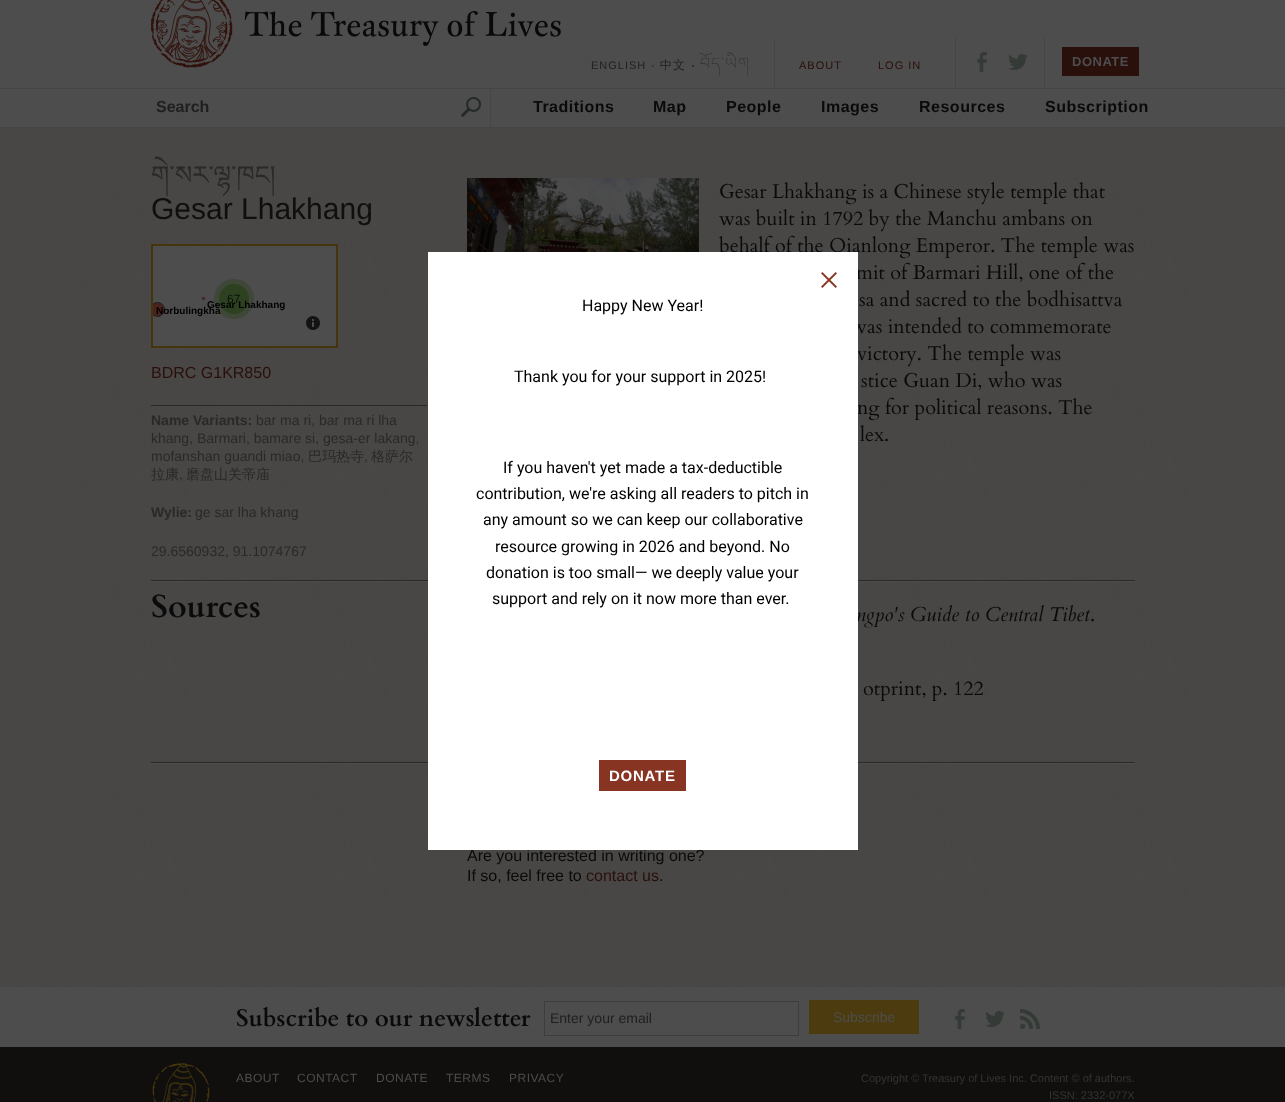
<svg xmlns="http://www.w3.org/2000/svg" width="1285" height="1102">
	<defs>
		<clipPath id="clip1"><rect x="153" y="246" width="183" height="100" /></clipPath>
	</defs>
	<rect width="100%" height="100%" fill="#484745" />
	<image x="5" y="128" width="1273" height="859" href="assets/img1.png" />
	<rect x="0" y="0" width="1285" height="127" fill="#4D4D4D" />
	<image x="151" y="0" width="410" height="68" href="assets/img2.png" />
	<rect x="0" y="88" width="1285" height="1" fill="#464542" />
	<rect x="774" y="39" width="1" height="50" fill="#464542" />
	<text x="591" y="69" font-family="Liberation Sans" font-size="11" letter-spacing="1" fill="#1F1F1F">ENGLISH</text>
	<text x="651" y="69" font-family="Liberation Sans" font-size="11" letter-spacing="1" fill="#0A0A0A">·</text>
	<text x="660" y="69" font-family="WenQuanYi Zen Hei" font-size="12" font-weight="500" letter-spacing="1" fill="#1F1F1F">中文</text>
	<text x="691" y="69" font-family="Liberation Sans" font-size="12" letter-spacing="1" fill="#0A0A0A">·</text>
	<text x="700" y="69" font-family="Noto Serif Tibetan" font-size="16" font-weight="100" letter-spacing="1.5" fill="#1F1F1F">བོད་ཡིག</text>
	<g font-family="Liberation Sans" font-size="11" letter-spacing="1" fill="#29100A">
		<text x="799" y="69">ABOUT</text>
		<text x="878" y="69">LOG IN</text>
	</g>
	<rect x="1044" y="38" width="1" height="50" fill="#464542" />
	<rect x="955" y="38" width="1" height="50" fill="#464542" />
	<image x="977" y="52" width="10" height="20" href="assets/img3.png" />
	<image x="1008" y="54" width="20" height="16" href="assets/img4.png" />
	<rect x="1062" y="47" width="77" height="29" fill="#29100A" />
	<text x="1072" y="66" font-family="Liberation Sans" font-size="13" font-weight="700" letter-spacing="0.5" fill="#4D4D4D">DONATE</text>
	<rect x="0" y="127" width="1285" height="1" fill="#464542" />
	<rect x="490" y="89" width="1" height="38" fill="#464542" />
	<text x="156" y="112" font-family="Liberation Sans" font-size="16" font-weight="700" fill="#1F1F1F">Search</text>
	<image x="461" y="97" width="20" height="20" href="assets/img5.png" />
	<g font-family="Liberation Sans" font-size="16" font-weight="700" letter-spacing="0.5" fill="#0A0A0A">
		<text x="533" y="112">Traditions</text>
		<text x="653" y="112">Map</text>
		<text x="726" y="112">People</text>
		<text x="821" y="112">Images</text>
		<text x="919" y="112">Resources</text>
		<text x="1045" y="112">Subscription</text>
	</g>
	<text x="151" y="184" font-family="Noto Serif Tibetan" font-size="26" fill="#292929">གེ་སར་ལྷ་ཁང།</text>
	<text x="151" y="219" font-family="Liberation Sans" font-size="30" fill="#110F0E">Gesar Lhakhang</text>
	<rect x="152" y="245" width="185" height="102" fill="none" stroke="#44350D" stroke-width="2" />
	<rect x="153" y="246" width="183" height="100" fill="#4D4D4D" />
	<circle cx="234" cy="299" r="20" fill="#3F4738" />
	<circle cx="234" cy="299" r="15" fill="#2D4121" />
	<text x="227" y="303" font-family="Liberation Sans" font-size="12" fill="#0B1108">67</text>
	<g clip-path="url(#clip1)">
		<circle cx="157.5" cy="309.5" r="7" fill="#49231D" stroke="#1F1F1F" />
	</g>
	<text x="156" y="314" font-family="Liberation Sans" font-size="10" font-weight="700" fill="#000000">Norbulingkha</text>
	<circle cx="203.5" cy="298.5" r="2" fill="#49231D" stroke="#4D4D4D" />
	<text x="207" y="308" font-family="Liberation Sans" font-size="10" font-weight="700" fill="#000000">Gesar Lhakhang</text>
	<image x="306" y="316" width="14" height="14" href="assets/img6.png" />
	<text x="151" y="378" font-family="Liberation Sans" font-size="16" fill="#29100A">BDRC G1KR850</text>
	<rect x="151" y="405" width="276" height="1" fill="#292929" />
	<text x="151" y="425" font-family="Liberation Sans" font-size="14" font-weight="700" fill="#292929">Name Variants:</text>
	<g font-family="Liberation Sans" font-size="14" fill="#292929">
		<text x="256" y="425">bar ma ri, bar ma ri lha</text>
		<text x="151" y="443">khang, Barmari, bamare si, gesa-er lakang,</text>
		<text x="151" y="461">mofanshan guandi miao,</text>
	</g>
	<text x="308" y="461" font-family="WenQuanYi Zen Hei" font-size="14" font-weight="500" fill="#292929">巴玛热寺</text>
	<text x="364" y="461" font-family="Liberation Sans" font-size="14" fill="#292929">,</text>
	<g font-family="WenQuanYi Zen Hei" font-size="14" font-weight="500" fill="#292929">
		<text x="371" y="461">格萨尔</text>
		<text x="151" y="479">拉康</text>
	</g>
	<text x="179" y="479" font-family="Liberation Sans" font-size="14" fill="#292929">,</text>
	<text x="186" y="479" font-family="WenQuanYi Zen Hei" font-size="14" font-weight="500" fill="#292929">磨盘山关帝庙</text>
	<text x="151" y="517" font-family="Liberation Sans" font-size="14" font-weight="700" fill="#292929">Wylie:</text>
	<g font-family="Liberation Sans" font-size="14" fill="#292929">
		<text x="195" y="517">ge sar lha khang</text>
		<text x="151" y="556">29.6560932, 91.1074767</text>
	</g>
	<image x="467" y="178" width="232" height="74" href="assets/img7.png" />
	<g font-family="Cardo" font-size="20" fill="#0A0A0A">
		<text x="719" y="198">Gesar Lhakhang is a Chinese style temple that</text>
		<text x="719" y="225">was built in 1792 by the Manchu ambans on</text>
		<text x="719" y="252">behalf of the Qianlong Emperor. The temple was</text>
		<text x="856" y="279">mit of Barmari Hill, one of the</text>
		<text x="859" y="306">sa and sacred to the bodhisattva</text>
		<text x="851" y="333">was intended to commemorate</text>
		<text x="857" y="360">victory. The temple was</text>
		<text x="861" y="387">stice Guan Di, who was</text>
		<text x="857" y="414">ng for political reasons. The</text>
		<text x="860" y="441">lex.</text>
	</g>
	<rect x="151" y="581" width="984" height="1" fill="#4D4D4D" />
	<rect x="151" y="580" width="984" height="1" fill="#292929" />
	<text x="856" y="621" font-family="Cardo" font-size="20" font-style="italic" fill="#0A0A0A">ngpo's Guide to Central Tibet</text>
	<rect x="151" y="763" width="984" height="1" fill="#4D4D4D" />
	<rect x="151" y="762" width="984" height="1" fill="#292929" />
	<text x="467" y="861" font-family="Liberation Sans" font-size="16" fill="#0A0A0A">Are you interested in writing one?</text>
	<rect x="428" y="252" width="430" height="598" fill="#FFFFFF" />
	<image x="821" y="272" width="16" height="16" href="assets/img8.png" />
	<g font-family="Roboto" font-size="16" fill="#000000">
		<text x="582" y="311">Happy New Year!</text>
		<text x="514" y="382">Thank you for your support in 2025!</text>
		<text x="503" y="473">If you haven't yet made a tax-deductible</text>
		<text x="476" y="499">contribution, we're asking all readers to pitch in</text>
		<text x="483" y="525">any amount so we can keep our collaborative</text>
		<text x="495" y="552">resource growing in 2026 and beyond. No</text>
		<text x="486" y="578">donation is too small— we deeply value your</text>
		<text x="492" y="604">support and rely on it now more than ever.</text>
	</g>
	<rect x="599" y="760" width="87" height="31" fill="#873522" />
	<text x="609" y="781" font-family="Liberation Sans" font-size="15" font-weight="700" letter-spacing="0.75" fill="#FFFFFF">DONATE</text>
	<text x="151" y="617" font-family="Cardo" font-size="32" font-weight="700" fill="#0A0A0A">Sources</text>
	<g font-family="Cardo" font-size="20" fill="#0A0A0A">
		<text x="1090" y="621">.</text>
		<text x="863" y="695">otprint, p. 122</text>
	</g>
	<text x="467" y="881" font-family="Liberation Sans" font-size="16" fill="#0A0A0A">If so, feel free to</text>
	<text x="586" y="881" font-family="Liberation Sans" font-size="16" fill="#29100A">contact us</text>
	<text x="659" y="881" font-family="Liberation Sans" font-size="16" fill="#0A0A0A">.</text>
	<rect x="0" y="987" width="1285" height="60" fill="#4D4D4D" />
	<text x="236" y="1026" font-family="Cardo" font-size="24" font-weight="700" fill="#0A0A0A">Subscribe to our newsletter</text>
	<rect x="544.5" y="1001.5" width="254" height="34" fill="none" stroke="#3E3D3B" />
	<text x="550" y="1023" font-family="Liberation Sans" font-size="14" fill="#1F1F1F">Enter your email</text>
	<rect x="809" y="1000" width="110" height="34" fill="#4C3B0E" />
	<text x="833" y="1022" font-family="Liberation Sans" font-size="14" fill="#4D4D4D">Subscribe</text>
	<image x="955" y="1009" width="10" height="20" href="assets/img3.png" />
	<image x="985" y="1011" width="20" height="16" href="assets/img4.png" />
	<image x="1020" y="1009" width="20" height="20" href="assets/img9.png" />
	<rect x="0" y="1047" width="1285" height="55" fill="#110F0E" />
	<image x="152" y="1063" width="58" height="39" href="assets/img10.png" />
	<g font-family="Liberation Sans" font-size="12" letter-spacing="0.5" fill="#4D4D4D">
		<text x="236" y="1082">ABOUT</text>
		<text x="297" y="1082">CONTACT</text>
		<text x="376" y="1082">DONATE</text>
		<text x="446" y="1082">TERMS</text>
		<text x="509" y="1082">PRIVACY</text>
	</g>
	<g font-family="Liberation Sans" font-size="11" fill="#343434">
		<text x="861" y="1082">Copyright © Treasury of Lives Inc. Content © of authors.</text>
		<text x="1049" y="1099">ISSN: 2332-077X</text>
	</g>
</svg>
